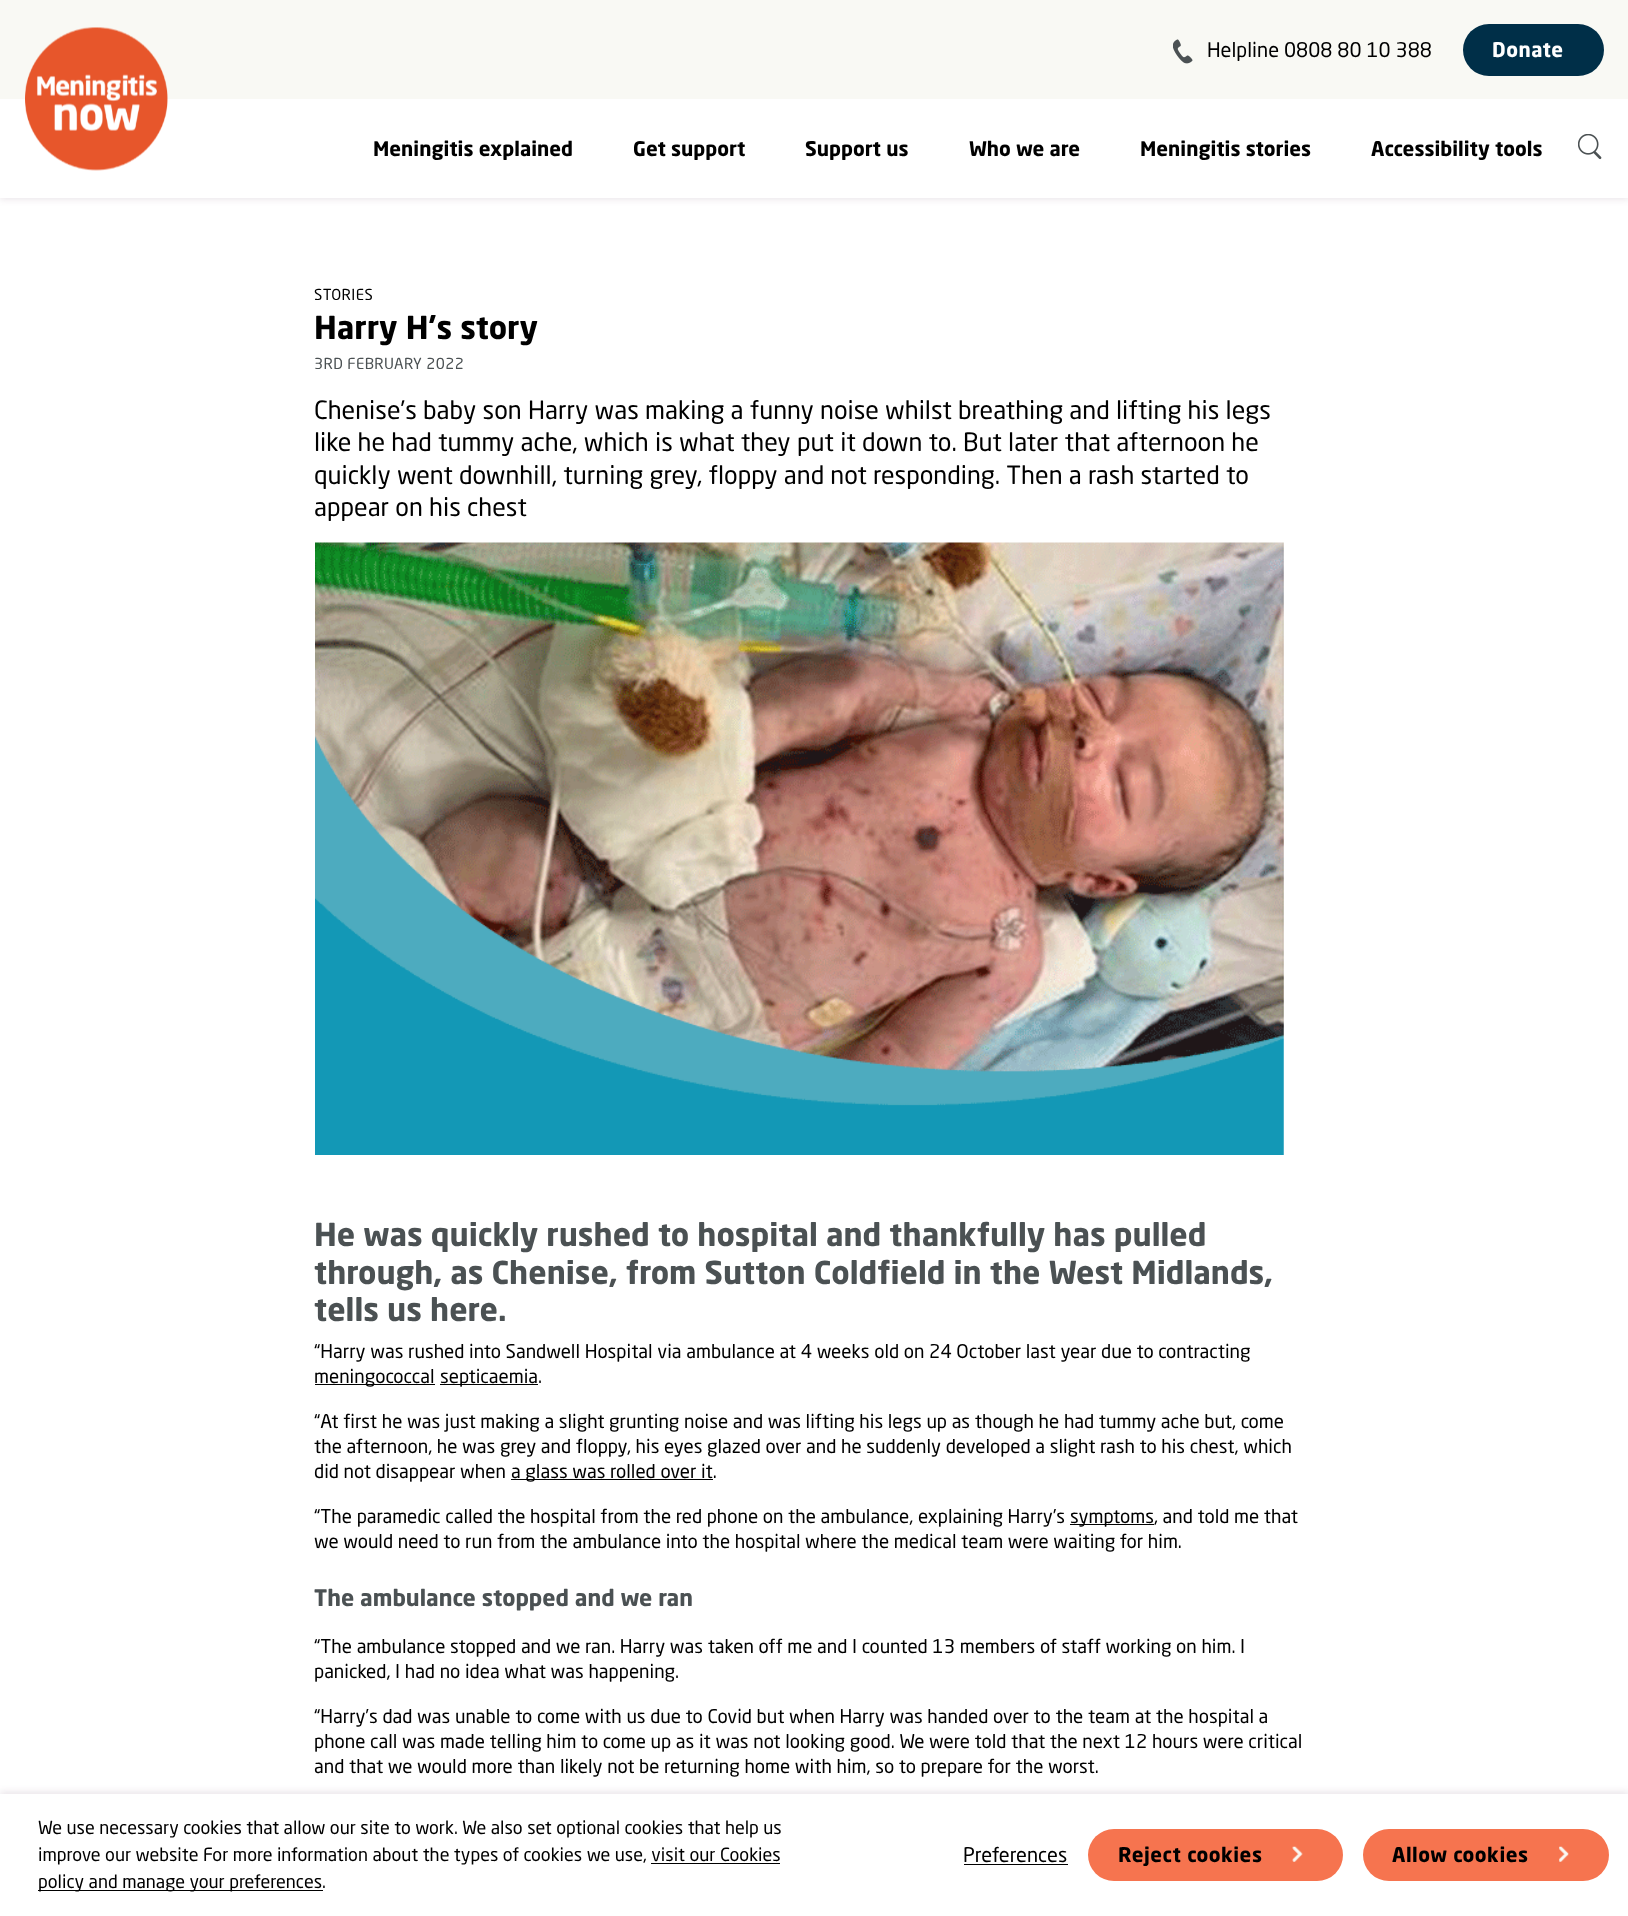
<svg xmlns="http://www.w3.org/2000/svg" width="1628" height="1916">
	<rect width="100%" height="100%" fill="#FFFFFF" />
	<rect x="0" y="3" width="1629" height="197" fill="#4B1F48" fill-opacity="0.1" filter="blur(3px)" />
	<rect x="0" y="0" width="1628" height="99" fill="#F9F9F4" />
	<rect x="0" y="99" width="1628" height="99" fill="#FFFFFF" />
	<image x="25" y="27" width="143" height="144" href="assets/img1.png" />
	<image x="1173" y="39" width="20" height="25" href="assets/img2.png" />
	<text x="1207" y="57" font-family="'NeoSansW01'" font-size="20" fill="#000000">Helpline 0808 80 10 388</text>
	<rect x="1463" y="24" width="141" height="52" rx="26" fill="#002F48" />
	<text x="1492" y="57" font-family="'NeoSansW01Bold'" font-size="20" font-weight="700" letter-spacing="0.5" fill="#FFFFFF">Donate</text>
	<g font-family="'NeoSansW01Bold'" font-size="20" font-weight="700" fill="#000000">
		<text x="373" y="156">Meningitis explained</text>
		<text x="633" y="156">Get support</text>
		<text x="805" y="156">Support us</text>
		<text x="969" y="156">Who we are</text>
		<text x="1140" y="156">Meningitis stories</text>
		<text x="1371" y="156">Accessibility tools</text>
	</g>
	<image x="1578" y="134" width="24" height="26" href="assets/img3.png" />
	<text x="314" y="300" font-family="'NeoSansW01'" font-size="15" letter-spacing="0.4" fill="#000000">STORIES</text>
	<text x="314" y="339" font-family="'NeoSansW01Bold'" font-size="31.25" font-weight="700" fill="#000000">Harry H's story</text>
	<text x="314" y="369" font-family="'NeoSansW01'" font-size="15" letter-spacing="0.4" fill="#4B5153">3RD FEBRUARY 2022</text>
	<g font-family="'NeoSansW01'" font-size="25" fill="#000000">
		<text x="314" y="419">Chenise’s baby son Harry was making a funny noise whilst breathing and lifting his legs</text>
		<text x="314" y="451">like he had tummy ache, which is what they put it down to. But later that afternoon he</text>
		<text x="314" y="484">quickly went downhill, turning grey, floppy and not responding. Then a rash started to</text>
		<text x="314" y="516">appear on his chest</text>
	</g>
	<image x="315" y="542" width="969" height="613" href="assets/img4.png" />
	<g font-family="'NeoSansW01Bold'" font-size="31.25" font-weight="700" fill="#4B5153">
		<text x="314" y="1246">He was quickly rushed to hospital and thankfully has pulled</text>
		<text x="314" y="1284">through, as Chenise, from Sutton Coldfield in the West Midlands,</text>
		<text x="314" y="1321">tells us here.</text>
	</g>
	<text x="314" y="1358" font-family="'NeoSansW01'" font-size="18.75" fill="#000000">“Harry was rushed into Sandwell Hospital via ambulance at 4 weeks old on 24 October last year due to contracting</text>
	<rect x="315" y="1384" width="120" height="1" fill="#000000" />
	<text x="314" y="1383" font-family="'NeoSansW01'" font-size="18.75" fill="#000000">meningococcal</text>
	<rect x="440" y="1384" width="98" height="1" fill="#000000" />
	<g font-family="'NeoSansW01'" font-size="18.75" fill="#000000">
		<text x="440" y="1383">septicaemia.</text>
		<text x="314" y="1428">“At first he was just making a slight grunting noise and was lifting his legs up as though he had tummy ache but, come</text>
		<text x="314" y="1453">the afternoon, he was grey and floppy, his eyes glazed over and he suddenly developed a slight rash to his chest, which</text>
		<text x="314" y="1478">did not disappear when</text>
	</g>
	<rect x="511" y="1479" width="202" height="1" fill="#000000" />
	<g font-family="'NeoSansW01'" font-size="18.75" fill="#000000">
		<text x="511" y="1478">a glass was rolled over it.</text>
		<text x="314" y="1523">“The paramedic called the hospital from the red phone on the ambulance, explaining Harry’s</text>
	</g>
	<rect x="1070" y="1524" width="84" height="1" fill="#000000" />
	<g font-family="'NeoSansW01'" font-size="18.75" fill="#000000">
		<text x="1070" y="1523">symptoms, and told me that</text>
		<text x="314" y="1548">we would need to run from the ambulance into the hospital where the medical team were waiting for him.</text>
	</g>
	<text x="314" y="1606" font-family="'NeoSansW01Bold'" font-size="22.5" font-weight="700" fill="#4B5153">The ambulance stopped and we ran</text>
	<g font-family="'NeoSansW01'" font-size="18.75" fill="#000000">
		<text x="314" y="1653">“The ambulance stopped and we ran. Harry was taken off me and I counted 13 members of staff working on him. I</text>
		<text x="314" y="1678">panicked, I had no idea what was happening.</text>
		<text x="314" y="1723">“Harry’s dad was unable to come with us due to Covid but when Harry was handed over to the team at the hospital a</text>
		<text x="314" y="1748">phone call was made telling him to come up as it was not looking good. We were told that the next 12 hours were critical</text>
		<text x="314" y="1773">and that we would more than likely not be returning home with him, so to prepare for the worst.</text>
	</g>
	<rect x="0" y="1791" width="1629" height="123" fill="#4B1F48" fill-opacity="0.1" filter="blur(3px)" />
	<rect x="0" y="1794" width="1628" height="122" fill="#FFFFFF" />
	<g font-family="'NeoSansW01'" font-size="18" fill="#000000">
		<text x="38" y="1834">We use necessary cookies that allow our site to work. We also set optional cookies that help us</text>
		<text x="38" y="1861">improve our website For more information about the types of cookies we use, visit our Cookies</text>
	</g>
	<rect x="38" y="1890" width="285" height="1" fill="#000000" />
	<text x="38" y="1888" font-family="'NeoSansW01'" font-size="18" fill="#000000">policy and manage your preferences.</text>
	<rect x="651" y="1863" width="129" height="1" fill="#000000" />
	<text x="963" y="1862" font-family="'NeoSansW01'" font-size="20" fill="#000000">Preferences</text>
	<rect x="964" y="1864" width="104" height="1" fill="#000000" />
	<rect x="1088" y="1829" width="255" height="52" rx="26" fill="#F6744F" />
	<text x="1118" y="1862" font-family="'NeoSansW01Bold'" font-size="20" font-weight="700" letter-spacing="0.5" fill="#000000">Reject cookies</text>
	<image x="1292" y="1846" width="11" height="16" href="assets/img5.png" />
	<rect x="1363" y="1829" width="246" height="52" rx="26" fill="#F6744F" />
	<text x="1392" y="1862" font-family="'NeoSansW01Bold'" font-size="20" font-weight="700" letter-spacing="0.5" fill="#000000">Allow cookies</text>
	<image x="1559" y="1846" width="10" height="16" href="assets/img6.png" />
</svg>
